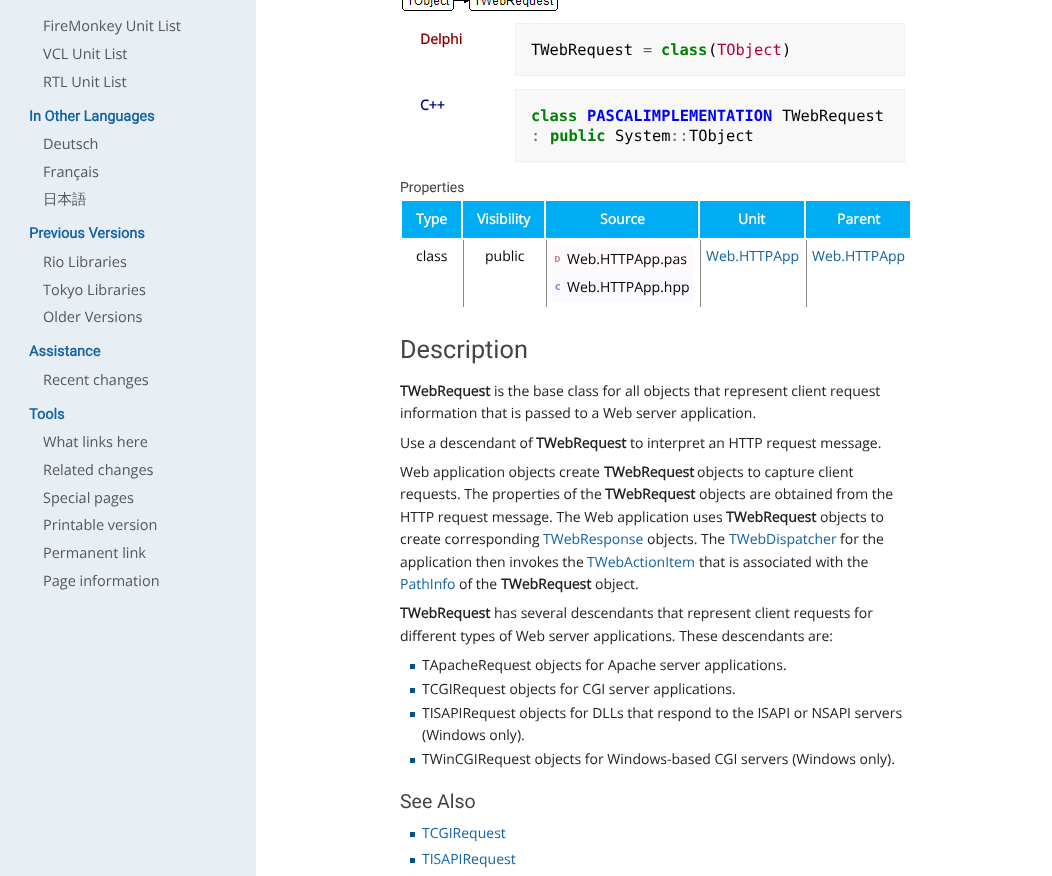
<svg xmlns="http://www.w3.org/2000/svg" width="1052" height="876">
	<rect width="100%" height="100%" fill="#E7EFF5" />
	<g font-family="Open Sans" font-size="14.5" fill="#575757">
		<text x="43" y="31">FireMonkey Unit List</text>
		<text x="43" y="59">VCL Unit List</text>
		<text x="43" y="87">RTL Unit List</text>
	</g>
	<text x="29" y="121" font-family="Roboto" font-size="14.5" font-weight="700" fill="#1562A3">In Other Languages</text>
	<g font-family="Open Sans" font-size="14.5" fill="#575757">
		<text x="43" y="149">Deutsch</text>
		<text x="43" y="177">Français</text>
	</g>
	<text x="43" y="204" font-family="WenQuanYi Zen Hei" font-size="14.5" font-weight="500" fill="#575757">日本語</text>
	<text x="29" y="238" font-family="Roboto" font-size="14.5" font-weight="700" fill="#1562A3">Previous Versions</text>
	<g font-family="Open Sans" font-size="14.5" fill="#575757">
		<text x="43" y="267">Rio Libraries</text>
		<text x="43" y="295">Tokyo Libraries</text>
		<text x="43" y="322">Older Versions</text>
	</g>
	<text x="29" y="356" font-family="Roboto" font-size="14.5" font-weight="700" fill="#1562A3">Assistance</text>
	<text x="43" y="385" font-family="Open Sans" font-size="14.5" fill="#575757">Recent changes</text>
	<text x="29" y="419" font-family="Roboto" font-size="14.5" font-weight="700" fill="#1562A3">Tools</text>
	<g font-family="Open Sans" font-size="14.5" fill="#575757">
		<text x="43" y="447">What links here</text>
		<text x="43" y="475">Related changes</text>
		<text x="43" y="503">Special pages</text>
		<text x="43" y="530">Printable version</text>
		<text x="43" y="558">Permanent link</text>
		<text x="43" y="586">Page information</text>
	</g>
	<rect x="256" y="0" width="796" height="876" fill="#FFFFFF" />
	<image x="402" y="0" width="156" height="11" href="assets/img1.png" />
	<text x="420" y="44" font-family="Open Sans" font-size="14" font-weight="700" fill="#880000">Delphi</text>
	<rect x="515.5" y="23.5" width="389" height="52" fill="#F8F8F8" stroke="#EFEFEF" />
	<text x="531" y="55" font-family="DejaVu Sans Mono" font-size="15.4" fill="#000000">TWebRequest</text>
	<text x="643" y="55" font-family="DejaVu Sans Mono" font-size="15.4" fill="#666666">=</text>
	<text x="661" y="55" font-family="DejaVu Sans Mono" font-size="15.4" font-weight="700" fill="#008000">class</text>
	<text x="708" y="55" font-family="DejaVu Sans Mono" font-size="15.4" fill="#000000">(</text>
	<text x="717" y="55" font-family="DejaVu Sans Mono" font-size="15.4" fill="#B00040">TObject</text>
	<text x="782" y="55" font-family="DejaVu Sans Mono" font-size="15.4" fill="#000000">)</text>
	<text x="420" y="110" font-family="Open Sans" font-size="14" font-weight="700" fill="#000088">C++</text>
	<rect x="515.5" y="89.5" width="389" height="72" fill="#F8F8F8" stroke="#EFEFEF" />
	<text x="531" y="121" font-family="DejaVu Sans Mono" font-size="15.4" font-weight="700" fill="#008000">class</text>
	<text x="587" y="121" font-family="DejaVu Sans Mono" font-size="15.4" font-weight="700" fill="#0000FF">PASCALIMPLEMENTATION</text>
	<text x="782" y="121" font-family="DejaVu Sans Mono" font-size="15.4" fill="#000000">TWebRequest</text>
	<text x="531" y="141" font-family="DejaVu Sans Mono" font-size="15.4" fill="#666666">:</text>
	<text x="550" y="141" font-family="DejaVu Sans Mono" font-size="15.4" font-weight="700" fill="#008000">public</text>
	<text x="615" y="141" font-family="DejaVu Sans Mono" font-size="15.4" fill="#000000">System</text>
	<text x="670" y="141" font-family="DejaVu Sans Mono" font-size="15.4" fill="#666666">::</text>
	<text x="689" y="141" font-family="DejaVu Sans Mono" font-size="15.4" fill="#000000">TObject</text>
	<text x="400" y="192" font-family="Roboto" font-size="14" fill="#444444">Properties</text>
	<rect x="402" y="201" width="59" height="36" fill="#00ADF2" />
	<rect x="402" y="237" width="59" height="1" fill="#888888" />
	<text x="416" y="224" font-family="Open Sans" font-size="14" font-weight="700" fill="#FFFFFF">Type</text>
	<rect x="463" y="201" width="81" height="36" fill="#00ADF2" />
	<rect x="463" y="237" width="81" height="1" fill="#888888" />
	<text x="477" y="224" font-family="Open Sans" font-size="14" font-weight="700" fill="#FFFFFF">Visibility</text>
	<rect x="546" y="201" width="152" height="36" fill="#00ADF2" />
	<rect x="546" y="237" width="152" height="1" fill="#888888" />
	<text x="600" y="224" font-family="Open Sans" font-size="14" font-weight="700" fill="#FFFFFF">Source</text>
	<rect x="700" y="201" width="104" height="36" fill="#00ADF2" />
	<rect x="700" y="237" width="104" height="1" fill="#888888" />
	<text x="738" y="224" font-family="Open Sans" font-size="14" font-weight="700" fill="#FFFFFF">Unit</text>
	<rect x="806" y="201" width="104" height="36" fill="#00ADF2" />
	<rect x="806" y="237" width="104" height="1" fill="#888888" />
	<text x="837" y="224" font-family="Open Sans" font-size="14" font-weight="700" fill="#FFFFFF">Parent</text>
	<text x="416" y="261" font-family="Open Sans" font-size="14" fill="#000000">class</text>
	<rect x="463" y="240" width="1" height="67" fill="#888888" />
	<text x="485" y="261" font-family="Open Sans" font-size="14" fill="#000000">public</text>
	<rect x="546" y="240" width="1" height="67" fill="#888888" />
	<rect x="552" y="245" width="141" height="28" fill="#FFF9F9" />
	<image x="555" y="256" width="5" height="6" href="assets/img2.png" />
	<text x="567" y="264" font-family="Open Sans" font-size="14" fill="#000000">Web.HTTPApp.pas</text>
	<rect x="552" y="273" width="141" height="29" fill="#F9F9FF" />
	<image x="555" y="284" width="5" height="6" href="assets/img3.png" />
	<text x="567" y="292" font-family="Open Sans" font-size="14" fill="#000000">Web.HTTPApp.hpp</text>
	<rect x="700" y="240" width="1" height="67" fill="#888888" />
	<text x="706" y="261" font-family="Open Sans" font-size="14" fill="#1562A3">Web.HTTPApp</text>
	<rect x="806" y="240" width="1" height="67" fill="#888888" />
	<text x="812" y="261" font-family="Open Sans" font-size="14" fill="#1562A3">Web.HTTPApp</text>
	<text x="400" y="358" font-family="Roboto" font-size="25.25" fill="#444444">Description</text>
	<text x="400" y="396" font-family="Open Sans" font-size="14" font-weight="700" fill="#222222">TWebRequest</text>
	<g font-family="Open Sans" font-size="14" fill="#222222">
		<text x="494" y="396">is the base class for all objects that represent client request</text>
		<text x="400" y="418">information that is passed to a Web server application.</text>
		<text x="400" y="448">Use a descendant of</text>
	</g>
	<text x="536" y="448" font-family="Open Sans" font-size="14" font-weight="700" fill="#222222">TWebRequest</text>
	<g font-family="Open Sans" font-size="14" fill="#222222">
		<text x="630" y="448">to interpret an HTTP request message.</text>
		<text x="400" y="477">Web application objects create</text>
	</g>
	<text x="604" y="477" font-family="Open Sans" font-size="14" font-weight="700" fill="#222222">TWebRequest</text>
	<g font-family="Open Sans" font-size="14" fill="#222222">
		<text x="697" y="477">objects to capture client</text>
		<text x="400" y="499">requests. The properties of the</text>
	</g>
	<text x="605" y="499" font-family="Open Sans" font-size="14" font-weight="700" fill="#222222">TWebRequest</text>
	<g font-family="Open Sans" font-size="14" fill="#222222">
		<text x="699" y="499">objects are obtained from the</text>
		<text x="400" y="522">HTTP request message. The Web application uses</text>
	</g>
	<text x="726" y="522" font-family="Open Sans" font-size="14" font-weight="700" fill="#222222">TWebRequest</text>
	<g font-family="Open Sans" font-size="14" fill="#222222">
		<text x="820" y="522">objects to</text>
		<text x="400" y="544">create corresponding</text>
	</g>
	<text x="543" y="544" font-family="Open Sans" font-size="14" fill="#1562A3">TWebResponse</text>
	<text x="647" y="544" font-family="Open Sans" font-size="14" fill="#222222">objects. The</text>
	<text x="729" y="544" font-family="Open Sans" font-size="14" fill="#1562A3">TWebDispatcher</text>
	<g font-family="Open Sans" font-size="14" fill="#222222">
		<text x="840" y="544">for the</text>
		<text x="400" y="567">application then invokes the</text>
	</g>
	<text x="587" y="567" font-family="Open Sans" font-size="14" fill="#1562A3">TWebActionItem</text>
	<text x="699" y="567" font-family="Open Sans" font-size="14" fill="#222222">that is associated with the</text>
	<text x="400" y="589" font-family="Open Sans" font-size="14" fill="#1562A3">PathInfo</text>
	<text x="459" y="589" font-family="Open Sans" font-size="14" fill="#222222">of the</text>
	<text x="501" y="589" font-family="Open Sans" font-size="14" font-weight="700" fill="#222222">TWebRequest</text>
	<text x="595" y="589" font-family="Open Sans" font-size="14" fill="#222222">object.</text>
	<text x="400" y="618" font-family="Open Sans" font-size="14" font-weight="700" fill="#222222">TWebRequest</text>
	<g font-family="Open Sans" font-size="14" fill="#222222">
		<text x="494" y="618">has several descendants that represent client requests for</text>
		<text x="400" y="641">different types of Web server applications. These descendants are:</text>
	</g>
	<rect x="410" y="664" width="5" height="5" fill="#00528C" />
	<text x="422" y="670" font-family="Open Sans" font-size="14" fill="#222222">TApacheRequest objects for Apache server applications.</text>
	<rect x="410" y="688" width="5" height="5" fill="#00528C" />
	<text x="422" y="694" font-family="Open Sans" font-size="14" fill="#222222">TCGIRequest objects for CGI server applications.</text>
	<rect x="410" y="712" width="5" height="5" fill="#00528C" />
	<g font-family="Open Sans" font-size="14" fill="#222222">
		<text x="422" y="718">TISAPIRequest objects for DLLs that respond to the ISAPI or NSAPI servers</text>
		<text x="422" y="740">(Windows only).</text>
	</g>
	<rect x="410" y="758" width="5" height="5" fill="#00528C" />
	<text x="422" y="764" font-family="Open Sans" font-size="14" fill="#222222">TWinCGIRequest objects for Windows-based CGI servers (Windows only).</text>
	<text x="400" y="808" font-family="Roboto" font-size="19.5" fill="#444444">See Also</text>
	<rect x="410" y="832" width="5" height="5" fill="#00528C" />
	<text x="422" y="838" font-family="Open Sans" font-size="14" fill="#1562A3">TCGIRequest</text>
	<rect x="410" y="858" width="5" height="5" fill="#00528C" />
	<text x="422" y="864" font-family="Open Sans" font-size="14" fill="#1562A3">TISAPIRequest</text>
</svg>
